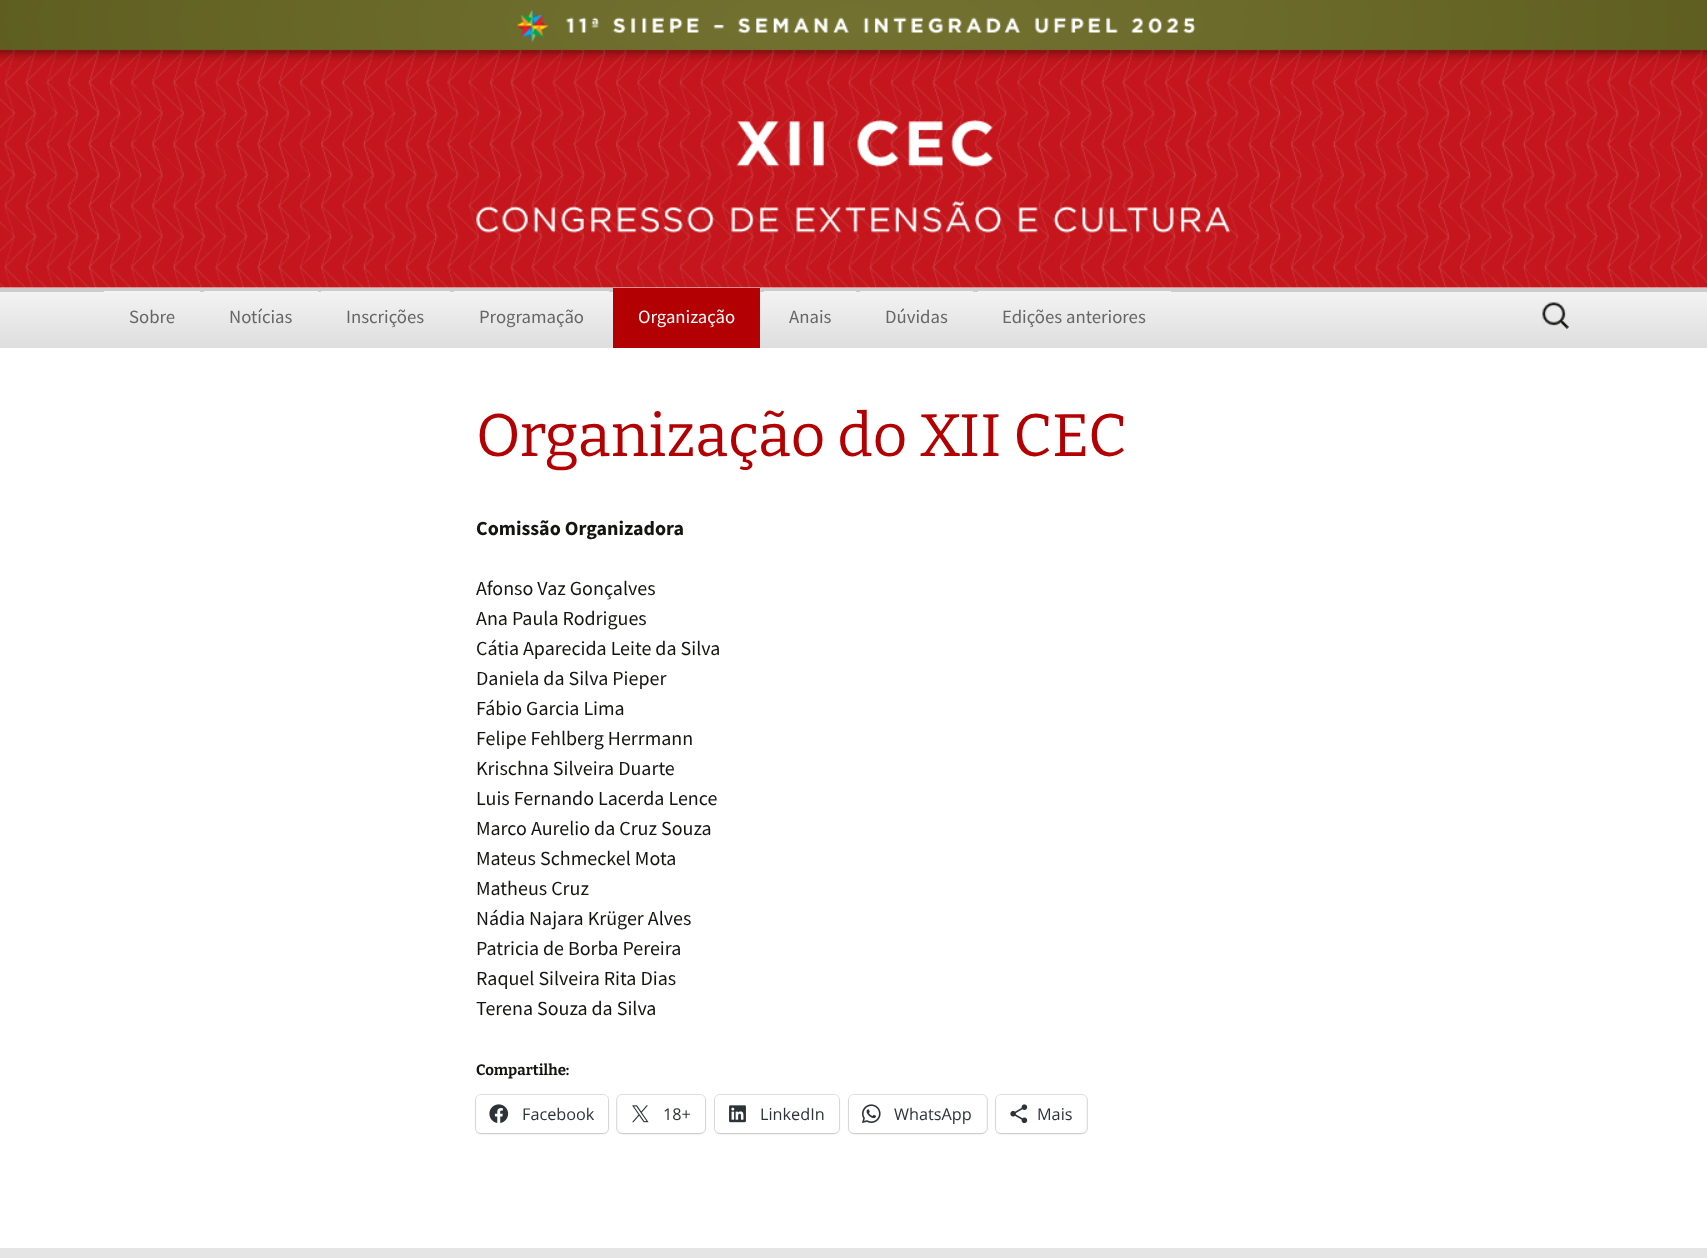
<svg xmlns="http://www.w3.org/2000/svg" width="1707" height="1258">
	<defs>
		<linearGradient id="g1" gradientUnits="userSpaceOnUse" x1="854" y1="291" x2="854" y2="348"><stop offset="0" stop-color="#F3F3F3" /><stop offset="1" stop-color="#DEDEDE" /></linearGradient>
		<linearGradient id="g2" gradientUnits="userSpaceOnUse" x1="152" y1="291" x2="152" y2="348"><stop offset="0" stop-color="#F3F3F3" /><stop offset="1" stop-color="#DEDEDE" /></linearGradient>
		<linearGradient id="g3" gradientUnits="userSpaceOnUse" x1="261" y1="291" x2="261" y2="348"><stop offset="0" stop-color="#F3F3F3" /><stop offset="1" stop-color="#DEDEDE" /></linearGradient>
		<linearGradient id="g4" gradientUnits="userSpaceOnUse" x1="386" y1="291" x2="386" y2="348"><stop offset="0" stop-color="#F3F3F3" /><stop offset="1" stop-color="#DEDEDE" /></linearGradient>
		<linearGradient id="g5" gradientUnits="userSpaceOnUse" x1="531" y1="291" x2="531" y2="348"><stop offset="0" stop-color="#F3F3F3" /><stop offset="1" stop-color="#DEDEDE" /></linearGradient>
		<linearGradient id="g6" gradientUnits="userSpaceOnUse" x1="810" y1="291" x2="810" y2="348"><stop offset="0" stop-color="#F3F3F3" /><stop offset="1" stop-color="#DEDEDE" /></linearGradient>
		<linearGradient id="g7" gradientUnits="userSpaceOnUse" x1="916" y1="291" x2="916" y2="348"><stop offset="0" stop-color="#F3F3F3" /><stop offset="1" stop-color="#DEDEDE" /></linearGradient>
		<linearGradient id="g8" gradientUnits="userSpaceOnUse" x1="1074" y1="291" x2="1074" y2="348"><stop offset="0" stop-color="#F3F3F3" /><stop offset="1" stop-color="#DEDEDE" /></linearGradient>
	</defs>
	<rect width="100%" height="100%" fill="#FFFFFF" />
	<image x="0" y="0" width="1707" height="288" href="assets/img1.png" />
	<rect x="0" y="292" width="1707" height="56" fill="url(#g1)" />
	<rect x="0" y="288" width="1707" height="4" fill="#CCCCCC" />
	<rect x="104" y="291" width="96" height="1" fill="url(#g2)" />
	<text x="129" y="323" font-family="Source Sans Pro" font-size="18.75" fill="#666666">Sobre</text>
	<rect x="204" y="291" width="114" height="1" fill="url(#g3)" />
	<text x="229" y="323" font-family="Source Sans Pro" font-size="18.75" fill="#666666">Notícias</text>
	<rect x="321" y="291" width="129" height="1" fill="url(#g4)" />
	<text x="346" y="323" font-family="Source Sans Pro" font-size="18.75" fill="#666666">Inscrições</text>
	<rect x="454" y="291" width="155" height="1" fill="url(#g5)" />
	<text x="479" y="323" font-family="Source Sans Pro" font-size="18.75" fill="#666666">Programação</text>
	<rect x="613" y="288" width="147" height="60" fill="#B30003" />
	<text x="638" y="323" font-family="Source Sans Pro" font-size="18.75" fill="#FFFFFF">Organização</text>
	<rect x="764" y="291" width="92" height="1" fill="url(#g6)" />
	<text x="789" y="323" font-family="Source Sans Pro" font-size="18.75" fill="#666666">Anais</text>
	<rect x="860" y="291" width="113" height="1" fill="url(#g7)" />
	<text x="885" y="323" font-family="Source Sans Pro" font-size="18.75" fill="#666666">Dúvidas</text>
	<rect x="978" y="291" width="193" height="1" fill="url(#g8)" />
	<text x="1002" y="323" font-family="Source Sans Pro" font-size="18.75" fill="#666666">Edições anteriores</text>
	<image x="1542" y="302" width="27" height="27" href="assets/img2.png" />
	<text x="476" y="456" font-family="Bitter" font-size="60" font-weight="100" fill="#B30003">Organização do XII CEC</text>
	<text x="476" y="535" font-family="Source Sans Pro" font-size="20" font-weight="700" fill="#141412">Comissão Organizadora</text>
	<g font-family="Source Sans Pro" font-size="20" fill="#141412">
		<text x="476" y="595">Afonso Vaz Gonçalves</text>
		<text x="476" y="625">Ana Paula Rodrigues</text>
		<text x="476" y="655">Cátia Aparecida Leite da Silva</text>
		<text x="476" y="685">Daniela da Silva Pieper</text>
		<text x="476" y="715">Fábio Garcia Lima</text>
		<text x="476" y="745">Felipe Fehlberg Herrmann</text>
		<text x="476" y="775">Krischna Silveira Duarte</text>
		<text x="476" y="805">Luis Fernando Lacerda Lence</text>
		<text x="476" y="835">Marco Aurelio da Cruz Souza</text>
		<text x="476" y="865">Mateus Schmeckel Mota</text>
		<text x="476" y="895">Matheus Cruz</text>
		<text x="476" y="925">Nádia Najara Krüger Alves</text>
		<text x="476" y="955">Patricia de Borba Pereira</text>
		<text x="476" y="985">Raquel Silveira Rita Dias</text>
		<text x="476" y="1015">Terena Souza da Silva</text>
	</g>
	<text x="476" y="1075" font-family="'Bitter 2'" font-size="15" font-weight="100" fill="#141412">Compartilhe:</text>
	<rect x="475.5" y="1094.5" width="133" height="39" rx="5.5" fill="none" stroke="#E0E0E0" />
	<rect x="476" y="1096" width="132" height="38" rx="5" fill="#000000" fill-opacity="0.12" filter="blur(1px)" />
	<rect x="476" y="1095" width="132" height="38" rx="5" fill="#FFFFFF" />
	<image x="489" y="1104" width="20" height="19" href="assets/img3.png" />
	<text x="522" y="1120" font-family="Open Sans" font-size="16.25" fill="#2C3338">Facebook</text>
	<rect x="616.5" y="1094.5" width="89" height="39" rx="5.5" fill="none" stroke="#E0E0E0" />
	<rect x="618" y="1096" width="87" height="38" rx="5" fill="#000000" fill-opacity="0.12" filter="blur(1px)" />
	<rect x="618" y="1095" width="87" height="38" rx="5" fill="#FFFFFF" />
	<image x="632" y="1105" width="17" height="18" href="assets/img4.png" />
	<text x="663" y="1120" font-family="Open Sans" font-size="16.25" fill="#2C3338">18+</text>
	<rect x="714.5" y="1094.5" width="125" height="39" rx="5.5" fill="none" stroke="#E0E0E0" />
	<rect x="715" y="1096" width="124" height="38" rx="5" fill="#000000" fill-opacity="0.12" filter="blur(1px)" />
	<rect x="715" y="1095" width="124" height="38" rx="5" fill="#FFFFFF" />
	<image x="729" y="1105" width="17" height="18" href="assets/img5.png" />
	<text x="760" y="1120" font-family="Open Sans" font-size="16.25" fill="#2C3338">LinkedIn</text>
	<rect x="848.5" y="1094.5" width="139" height="39" rx="5.5" fill="none" stroke="#E0E0E0" />
	<rect x="849" y="1096" width="137" height="38" rx="5" fill="#000000" fill-opacity="0.12" filter="blur(1px)" />
	<rect x="849" y="1095" width="137" height="38" rx="5" fill="#FFFFFF" />
	<image x="862" y="1104" width="19" height="19" href="assets/img6.png" />
	<text x="894" y="1120" font-family="Open Sans" font-size="16.25" fill="#2C3338">WhatsApp</text>
	<rect x="995.5" y="1094.5" width="92" height="39" rx="5.5" fill="none" stroke="#E0E0E0" />
	<rect x="996" y="1096" width="90" height="38" rx="5" fill="#000000" fill-opacity="0.12" filter="blur(1px)" />
	<rect x="996" y="1095" width="90" height="38" rx="5" fill="#FFFFFF" />
	<image x="1010" y="1104" width="18" height="20" href="assets/img7.png" />
	<text x="1037" y="1120" font-family="Open Sans" font-size="16.25" fill="#2C3338">Mais</text>
	<rect x="0" y="1248" width="1707" height="10" fill="#E5E5E5" />
</svg>
